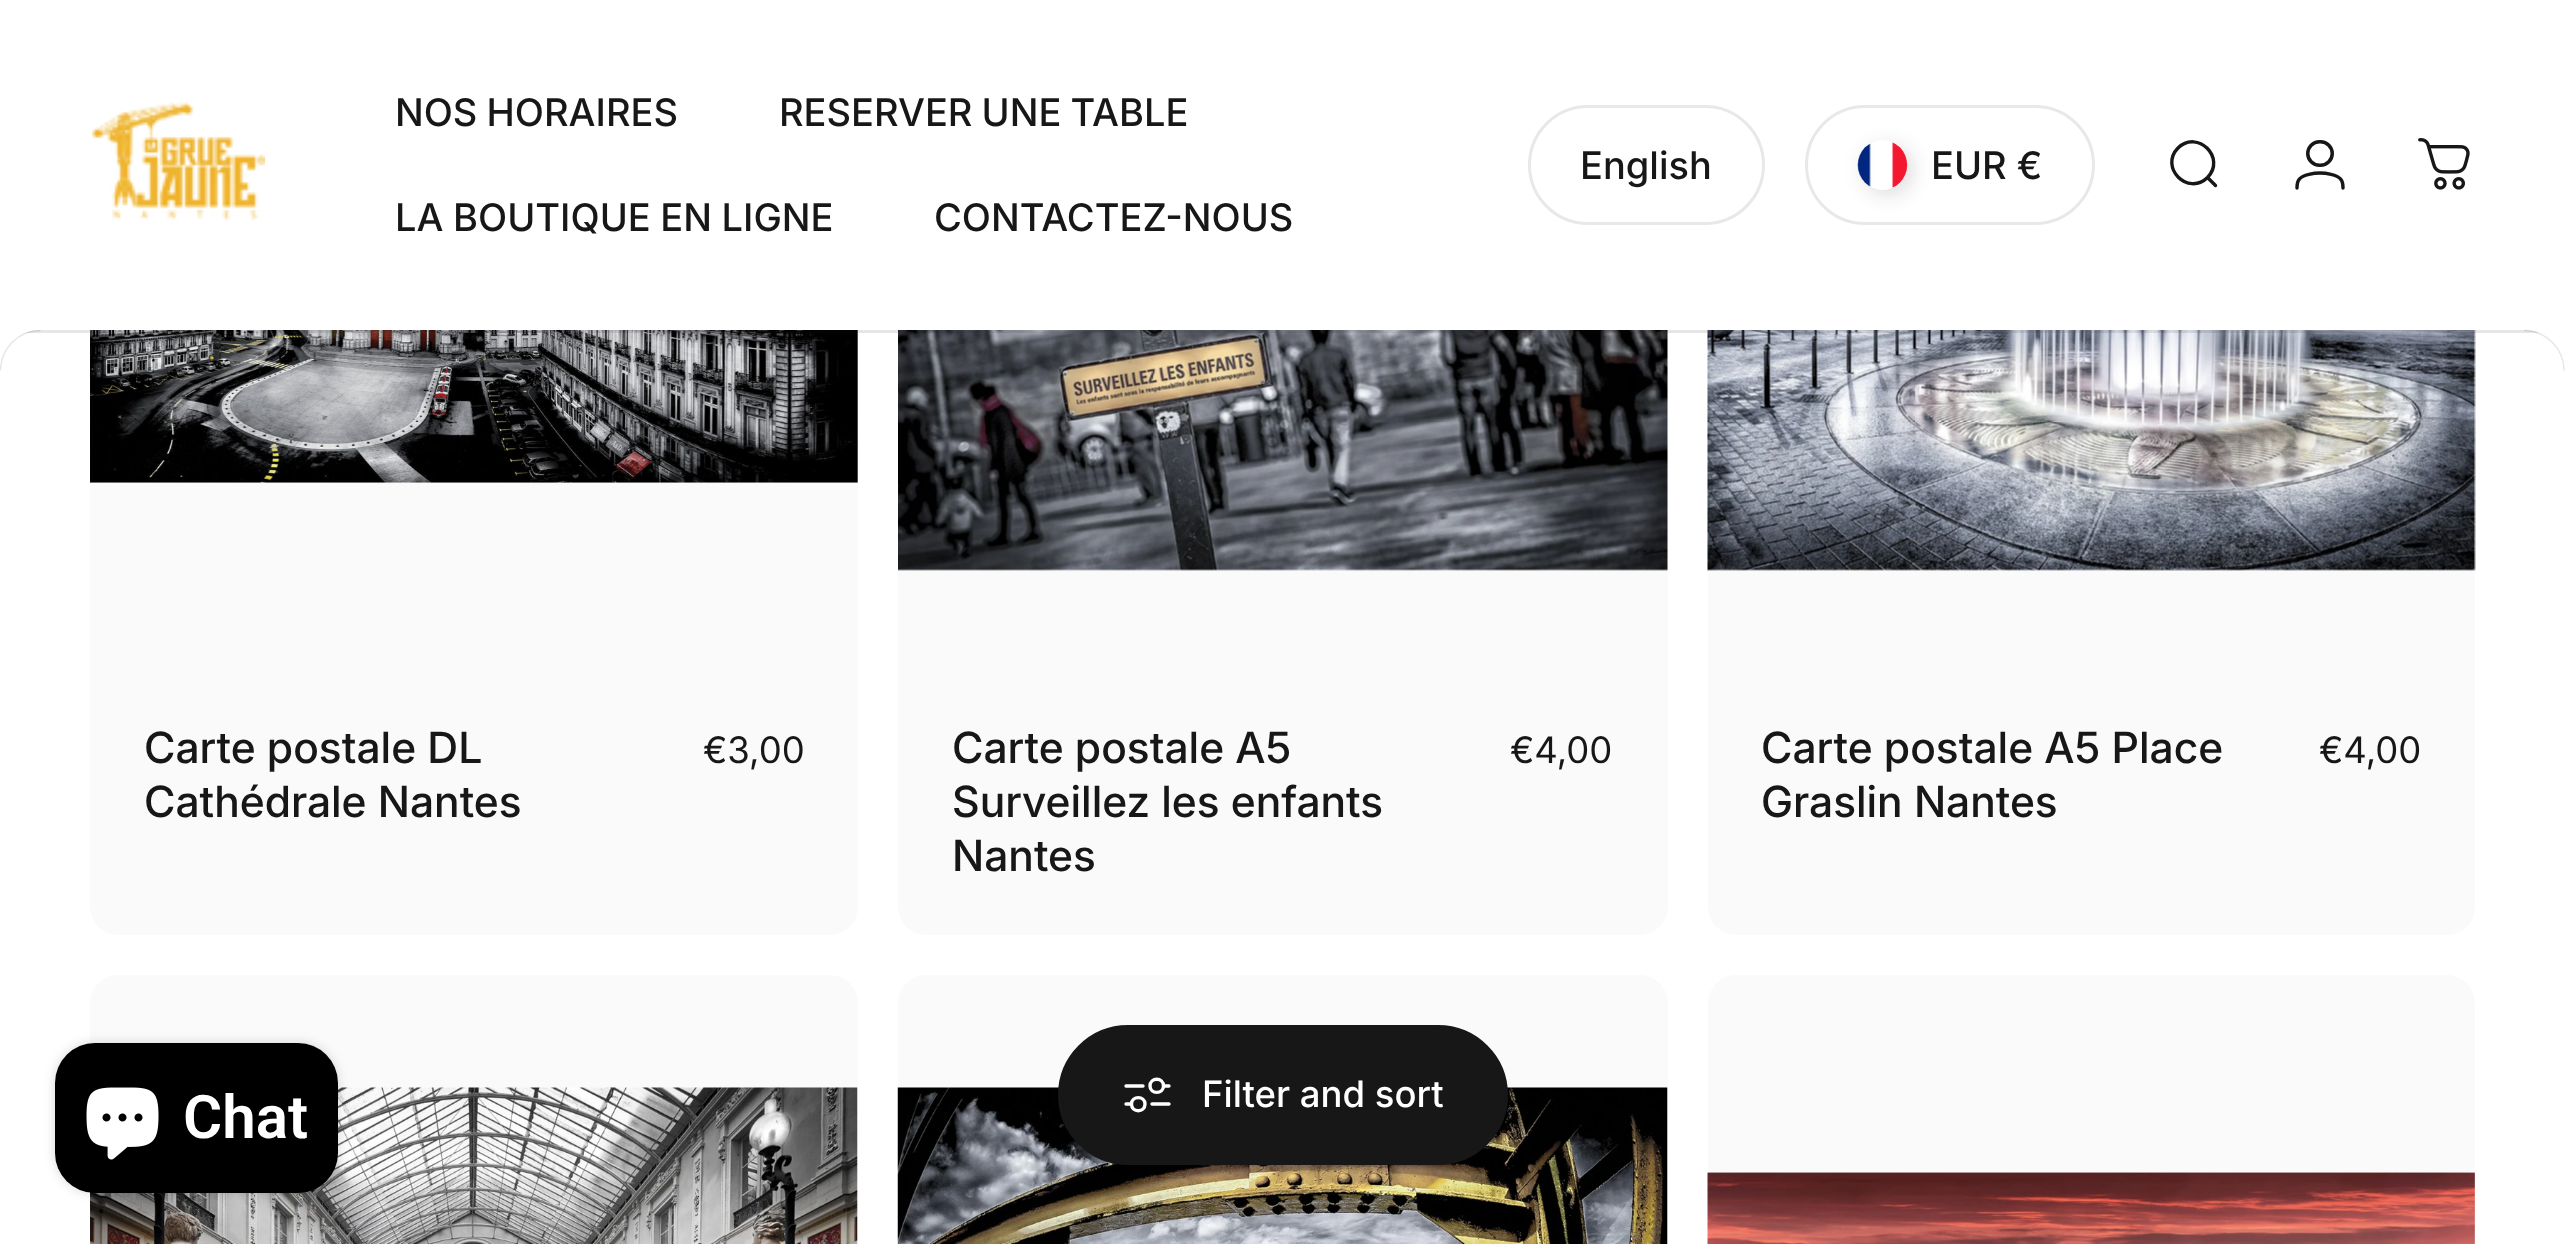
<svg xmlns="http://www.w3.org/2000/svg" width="2565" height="1244">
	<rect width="100%" height="100%" fill="#FFFFFF" />
	<rect x="90" y="-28" width="768" height="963" rx="28" fill="#FAFAFA" />
	<rect x="898" y="-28" width="770" height="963" rx="28" fill="#FAFAFA" />
	<rect x="1708" y="-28" width="767" height="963" rx="28" fill="#FAFAFA" />
	<rect x="39" y="0" width="2487" height="330" fill="#FFFFFF" />
	<image x="91" y="102" width="174" height="119" href="assets/img1.png" />
	<g font-family="'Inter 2'" font-size="38" font-weight="500" fill="#171717">
		<text x="395" y="126" word-spacing="-1">NOS HORAIRES</text>
		<text x="779" y="126" word-spacing="-1">RESERVER UNE TABLE</text>
		<text x="395" y="231" word-spacing="-0.5">LA BOUTIQUE EN LIGNE</text>
		<text x="934" y="231">CONTACTEZ-NOUS</text>
	</g>
	<rect x="1529.5" y="106.5" width="234" height="117" rx="58.5" fill="none" stroke="#E8E8E8" stroke-width="3" />
	<text x="1580" y="179" font-family="'Inter 2'" font-size="38" font-weight="500" fill="#171717">English</text>
	<rect x="1806.5" y="106.5" width="287" height="117" rx="58.5" fill="none" stroke="#E8E8E8" stroke-width="3" />
	<rect x="1863" y="145" width="50" height="50" rx="25" fill="#171717" fill-opacity="0.15" filter="blur(10px)" />
	<circle cx="1883" cy="165" r="25" fill="#FAFAFA" />
	<image x="1857" y="140" width="51" height="50" href="assets/img2.png" />
	<text x="1931" y="179" font-family="'Inter 2'" font-size="38" font-weight="500" fill="#171717">EUR €</text>
	<path d="M2215.5 185.5L2207.5 177.5M2207.5 177.5C2226.5 158 2197.5 129 2178 148C2159 167.5 2188 196.5 2207.5 177.5Z" fill="none" stroke="#171717" stroke-width="3.4" stroke-linecap="round" />
	<rect x="2307.75" y="141.75" width="24.5" height="23.5" rx="11.75" fill="none" stroke="#171717" stroke-width="3.5" />
	<path d="M2320 173C2325.5 173 2337 174.5 2340.5 179C2343 181.5 2343 184.5 2343 188M2320 173C2314.5 173 2303 174.5 2299.5 179C2297 181.5 2297 184.5 2297 188" fill="none" stroke="#171717" stroke-width="3.4" stroke-linecap="round" />
	<image x="2418" y="138" width="52" height="52" href="assets/img3.png" />
	<image x="90" y="330" width="768" height="153" href="assets/img4.png" />
	<image x="898" y="330" width="770" height="241" href="assets/img5.png" />
	<image x="1707" y="330" width="769" height="241" href="assets/img6.png" />
	<rect x="25" y="330" width="2514" height="3" fill="#171717" fill-opacity="0.11" />
	<path d="M40 330H0V370C0 348 18 330 40 330Z" fill="#FFFFFF" fill-rule="evenodd" />
	<path d="M.5 370.5C.5 348.5 18.5 330.5 40.5 330.5" fill="none" stroke="#171717" stroke-opacity="0.11" stroke-width="1.4" />
	<path d="M2524 330H2565V370H2564C2564 348 2546 330 2524 330Z" fill="#FFFFFF" fill-rule="evenodd" />
	<path d="M2564 370.5C2564 348.5 2546 330.5 2524 330.5" fill="none" stroke="#171717" stroke-opacity="0.11" stroke-width="1.4" />
	<g font-family="Inter" font-size="43" font-weight="500" fill="#171717">
		<text x="144" y="763">Carte postale DL</text>
		<text x="144" y="817">Cathédrale Nantes</text>
	</g>
	<text x="703" y="763" font-family="Inter" font-size="36.5" fill="#171717">€3,00</text>
	<g font-family="Inter" font-size="43" font-weight="500" fill="#171717">
		<text x="952" y="763">Carte postale A5</text>
		<text x="952" y="817">Surveillez les enfants</text>
		<text x="952" y="871">Nantes</text>
	</g>
	<text x="1510" y="763" font-family="Inter" font-size="36.5" fill="#171717">€4,00</text>
	<g font-family="Inter" font-size="43" font-weight="500" fill="#171717">
		<text x="1761" y="763">Carte postale A5 Place</text>
		<text x="1761" y="817">Graslin Nantes</text>
	</g>
	<text x="2319" y="763" font-family="Inter" font-size="36.5" fill="#171717">€4,00</text>
	<rect x="90" y="975" width="768" height="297" rx="28" fill="#FAFAFA" />
	<image x="90" y="1087" width="768" height="157" href="assets/img7.png" />
	<rect x="898" y="975" width="770" height="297" rx="28" fill="#FAFAFA" />
	<image x="897" y="1087" width="771" height="157" href="assets/img8.png" />
	<rect x="1708" y="975" width="767" height="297" rx="28" fill="#FAFAFA" />
	<image x="1707" y="1172" width="768" height="72" href="assets/img9.png" />
	<rect x="1060.5" y="1027.5" width="445" height="135" rx="67.5" fill="#171717" stroke="#171717" stroke-width="5" />
	<path d="M1126 1104H1131.5M1131.5 1104C1131.5 1113 1145 1113 1145 1104C1145 1095.5 1131.5 1095.5 1131.5 1104ZM1163.5 1086H1169M1163.5 1086C1163.5 1094.5 1150 1094.5 1150 1086C1150 1077 1163.5 1077 1163.5 1086ZM1152 1104H1169M1126 1086H1143" fill="none" stroke="#FFFFFF" stroke-width="3.4" stroke-linecap="round" />
	<text x="1202" y="1107" font-family="'Inter 2'" font-size="36.5" font-weight="500" fill="#FFFFFF">Filter and sort</text>
	<rect x="55" y="1043" width="283" height="150" rx="40" fill="#000000" fill-opacity="0.15" filter="blur(6px)" />
	<rect x="55" y="1043" width="283" height="150" rx="40" fill="#000000" />
	<image x="86" y="1087" width="73" height="73" href="assets/img10.png" />
	<text x="183" y="1138" font-family="Roboto" font-size="60" font-weight="600" fill="#FFFFFF">Chat</text>
</svg>
